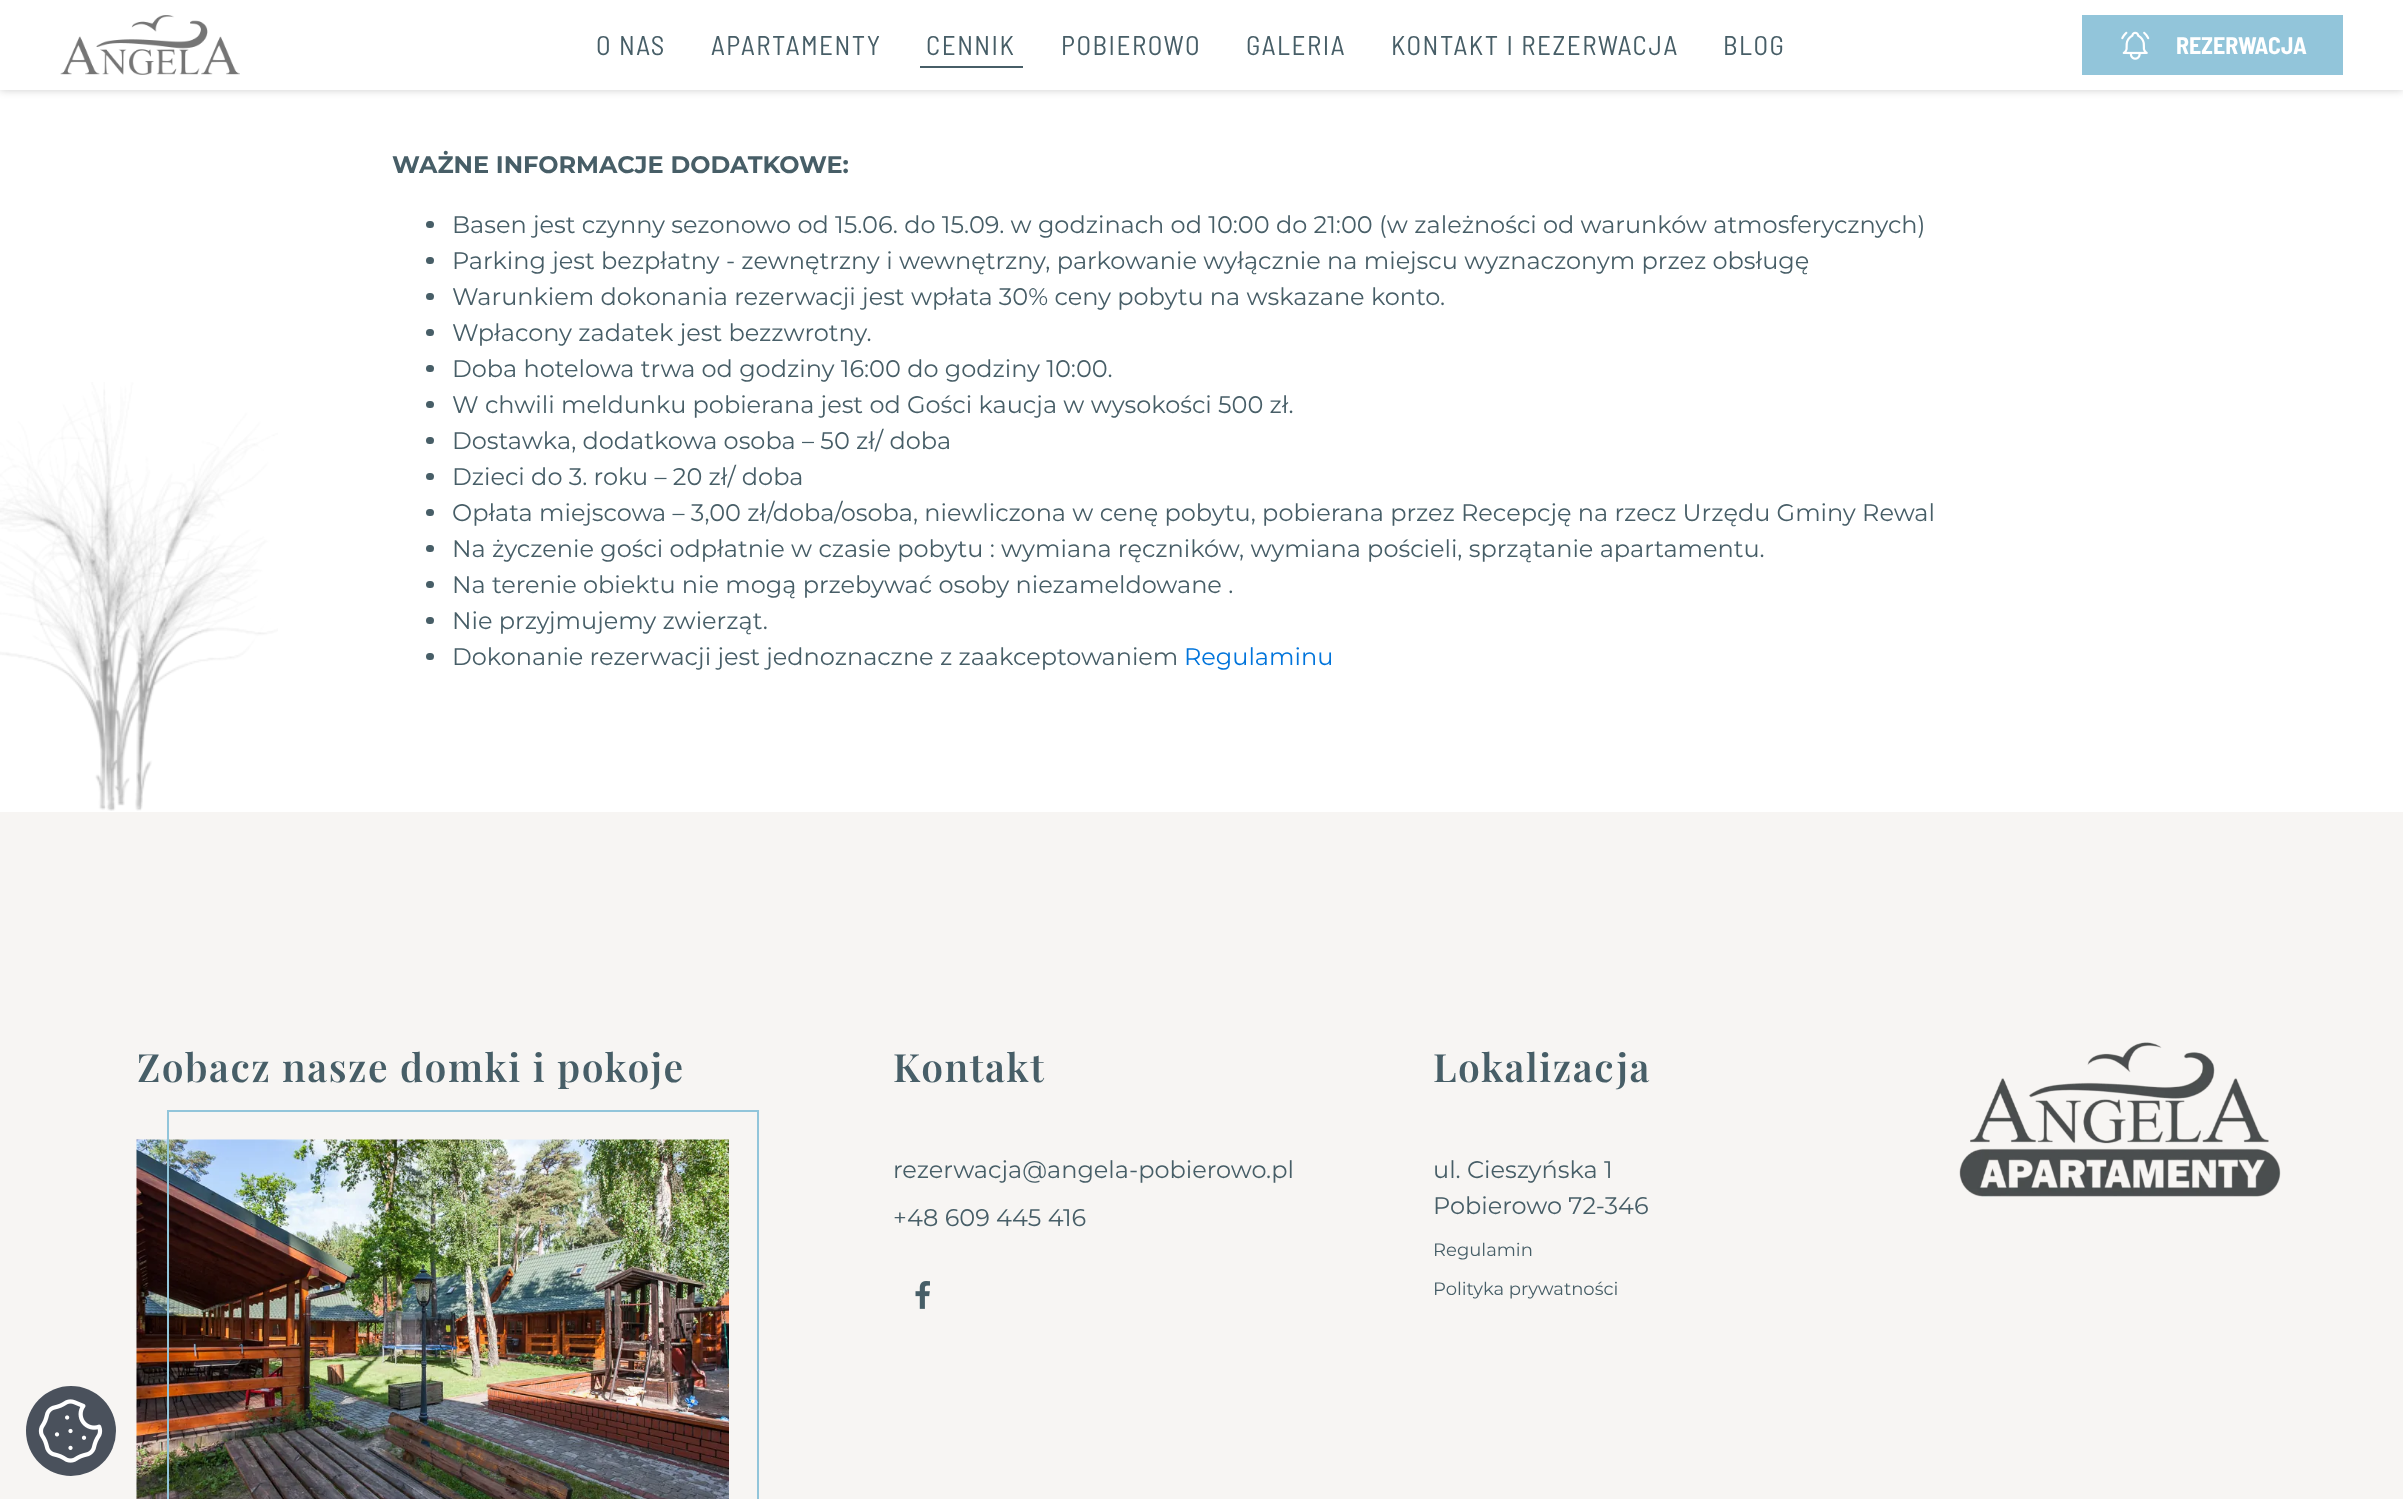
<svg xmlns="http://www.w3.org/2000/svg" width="2403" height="1499">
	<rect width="100%" height="100%" fill="#FFFFFF" />
	<rect x="0" y="-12" width="2403" height="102" fill="#000000" fill-opacity="0.2" filter="blur(4px)" />
	<rect x="0" y="0" width="2403" height="90" fill="#FFFFFF" />
	<image x="60" y="15" width="180" height="60" href="assets/img1.png" />
	<g font-family="Barlow Semi Condensed" font-size="27" letter-spacing="1.5" fill="#475E67">
		<text x="596" y="55">O NAS</text>
		<text x="711" y="55">APARTAMENTY</text>
		<text x="926" y="55">CENNIK</text>
	</g>
	<rect x="920" y="66" width="103" height="2" fill="#475E67" />
	<g font-family="Barlow Semi Condensed" font-size="27" letter-spacing="1.5" fill="#475E67">
		<text x="1061" y="55">POBIEROWO</text>
		<text x="1246" y="55">GALERIA</text>
		<text x="1391" y="55">KONTAKT I REZERWACJA</text>
		<text x="1723" y="55">BLOG</text>
	</g>
	<rect x="2082" y="15" width="261" height="60" fill="#92C5DA" />
	<image x="2121" y="31" width="29" height="29" href="assets/img2.png" />
	<text x="2176" y="54" font-family="Barlow Semi Condensed" font-size="24" font-weight="700" fill="#FFFFFF">REZERWACJA</text>
	<image x="0" y="382" width="278" height="429" href="assets/img3.png" />
	<text x="392" y="173" font-family="Montserrat" font-size="24" font-weight="700" fill="#475E67">WAŻNE INFORMACJE DODATKOWE:</text>
	<rect x="426" y="221" width="8" height="7" rx="3.5" fill="#475E67" />
	<text x="452" y="233" font-family="Montserrat" font-size="24" fill="#475E67">Basen jest czynny sezonowo od 15.06. do 15.09. w godzinach od 10:00 do 21:00 (w zależności od warunków atmosferycznych)</text>
	<rect x="426" y="257" width="8" height="7" rx="3.5" fill="#475E67" />
	<text x="452" y="269" font-family="Montserrat" font-size="24" fill="#475E67">Parking jest bezpłatny - zewnętrzny i wewnętrzny, parkowanie wyłącznie na miejscu wyznaczonym przez obsługę</text>
	<rect x="426" y="293" width="8" height="7" rx="3.5" fill="#475E67" />
	<text x="452" y="305" font-family="Montserrat" font-size="24" fill="#475E67">Warunkiem dokonania rezerwacji jest wpłata 30% ceny pobytu na wskazane konto.</text>
	<rect x="426" y="329" width="8" height="7" rx="3.5" fill="#475E67" />
	<text x="452" y="341" font-family="Montserrat" font-size="24" fill="#475E67">Wpłacony zadatek jest bezzwrotny.</text>
	<rect x="426" y="365" width="8" height="7" rx="3.5" fill="#475E67" />
	<text x="452" y="377" font-family="Montserrat" font-size="24" fill="#475E67">Doba hotelowa trwa od godziny 16:00 do godziny 10:00.</text>
	<rect x="426" y="401" width="8" height="7" rx="3.5" fill="#475E67" />
	<text x="452" y="413" font-family="Montserrat" font-size="24" fill="#475E67">W chwili meldunku pobierana jest od Gości kaucja w wysokości 500 zł.</text>
	<rect x="426" y="437" width="8" height="7" rx="3.5" fill="#475E67" />
	<text x="452" y="449" font-family="Montserrat" font-size="24" fill="#475E67">Dostawka, dodatkowa osoba – 50 zł/ doba</text>
	<rect x="426" y="473" width="8" height="7" rx="3.5" fill="#475E67" />
	<text x="452" y="485" font-family="Montserrat" font-size="24" fill="#475E67">Dzieci do 3. roku – 20 zł/ doba</text>
	<rect x="426" y="509" width="8" height="7" rx="3.5" fill="#475E67" />
	<text x="452" y="521" font-family="Montserrat" font-size="24" fill="#475E67">Opłata miejscowa – 3,00 zł/doba/osoba, niewliczona w cenę pobytu, pobierana przez Recepcję na rzecz Urzędu Gminy Rewal</text>
	<rect x="426" y="545" width="8" height="7" rx="3.5" fill="#475E67" />
	<text x="452" y="557" font-family="Montserrat" font-size="24" fill="#475E67">Na życzenie gości odpłatnie w czasie pobytu : wymiana ręczników, wymiana pościeli, sprzątanie apartamentu.</text>
	<rect x="426" y="581" width="8" height="7" rx="3.5" fill="#475E67" />
	<text x="452" y="593" font-family="Montserrat" font-size="24" fill="#475E67">Na terenie obiektu nie mogą przebywać osoby niezameldowane .</text>
	<rect x="426" y="617" width="8" height="7" rx="3.5" fill="#475E67" />
	<text x="452" y="629" font-family="Montserrat" font-size="24" fill="#475E67">Nie przyjmujemy zwierząt.</text>
	<rect x="426" y="653" width="8" height="7" rx="3.5" fill="#475E67" />
	<text x="452" y="665" font-family="Montserrat" font-size="24" fill="#475E67">Dokonanie rezerwacji jest jednoznaczne z zaakceptowaniem</text>
	<text x="1184" y="665" font-family="Montserrat" font-size="24" fill="#0074DB">Regulaminu</text>
	<rect x="0" y="812" width="2403" height="687" fill="#F7F5F3" />
	<text x="137" y="1082" font-family="Playfair Display" font-size="39" font-weight="600" letter-spacing="1.5" fill="#475E67">Zobacz nasze domki i pokoje</text>
	<image x="136" y="1139" width="593" height="360" href="assets/img4.png" />
	<rect x="168" y="1111" width="590" height="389" fill="none" stroke="#92C5DA" stroke-width="2" />
	<text x="893" y="1082" font-family="Playfair Display" font-size="39" font-weight="600" letter-spacing="1.5" fill="#475E67">Kontakt</text>
	<g font-family="Montserrat" font-size="24" fill="#475E67">
		<text x="893" y="1178">rezerwacja@angela-pobierowo.pl</text>
		<text x="893" y="1226">+48 609 445 416</text>
	</g>
	<image x="915" y="1281" width="15" height="28" href="assets/img5.png" />
	<text x="1433" y="1082" font-family="Playfair Display" font-size="39" font-weight="600" letter-spacing="1.5" fill="#475E67">Lokalizacja</text>
	<g font-family="Montserrat" font-size="24" fill="#475E67">
		<text x="1433" y="1178">ul. Cieszyńska 1</text>
		<text x="1433" y="1214">Pobierowo 72-346</text>
	</g>
	<g font-family="Montserrat" font-size="18" fill="#475E67">
		<text x="1433" y="1256">Regulamin</text>
		<text x="1433" y="1295">Polityka prywatności</text>
	</g>
	<image x="1959" y="1042" width="322" height="155" href="assets/img6.png" />
	<circle cx="71" cy="1431" r="45" fill="#4A515C" />
	<image x="38" y="1399" width="65" height="64" href="assets/img7.png" />
</svg>
